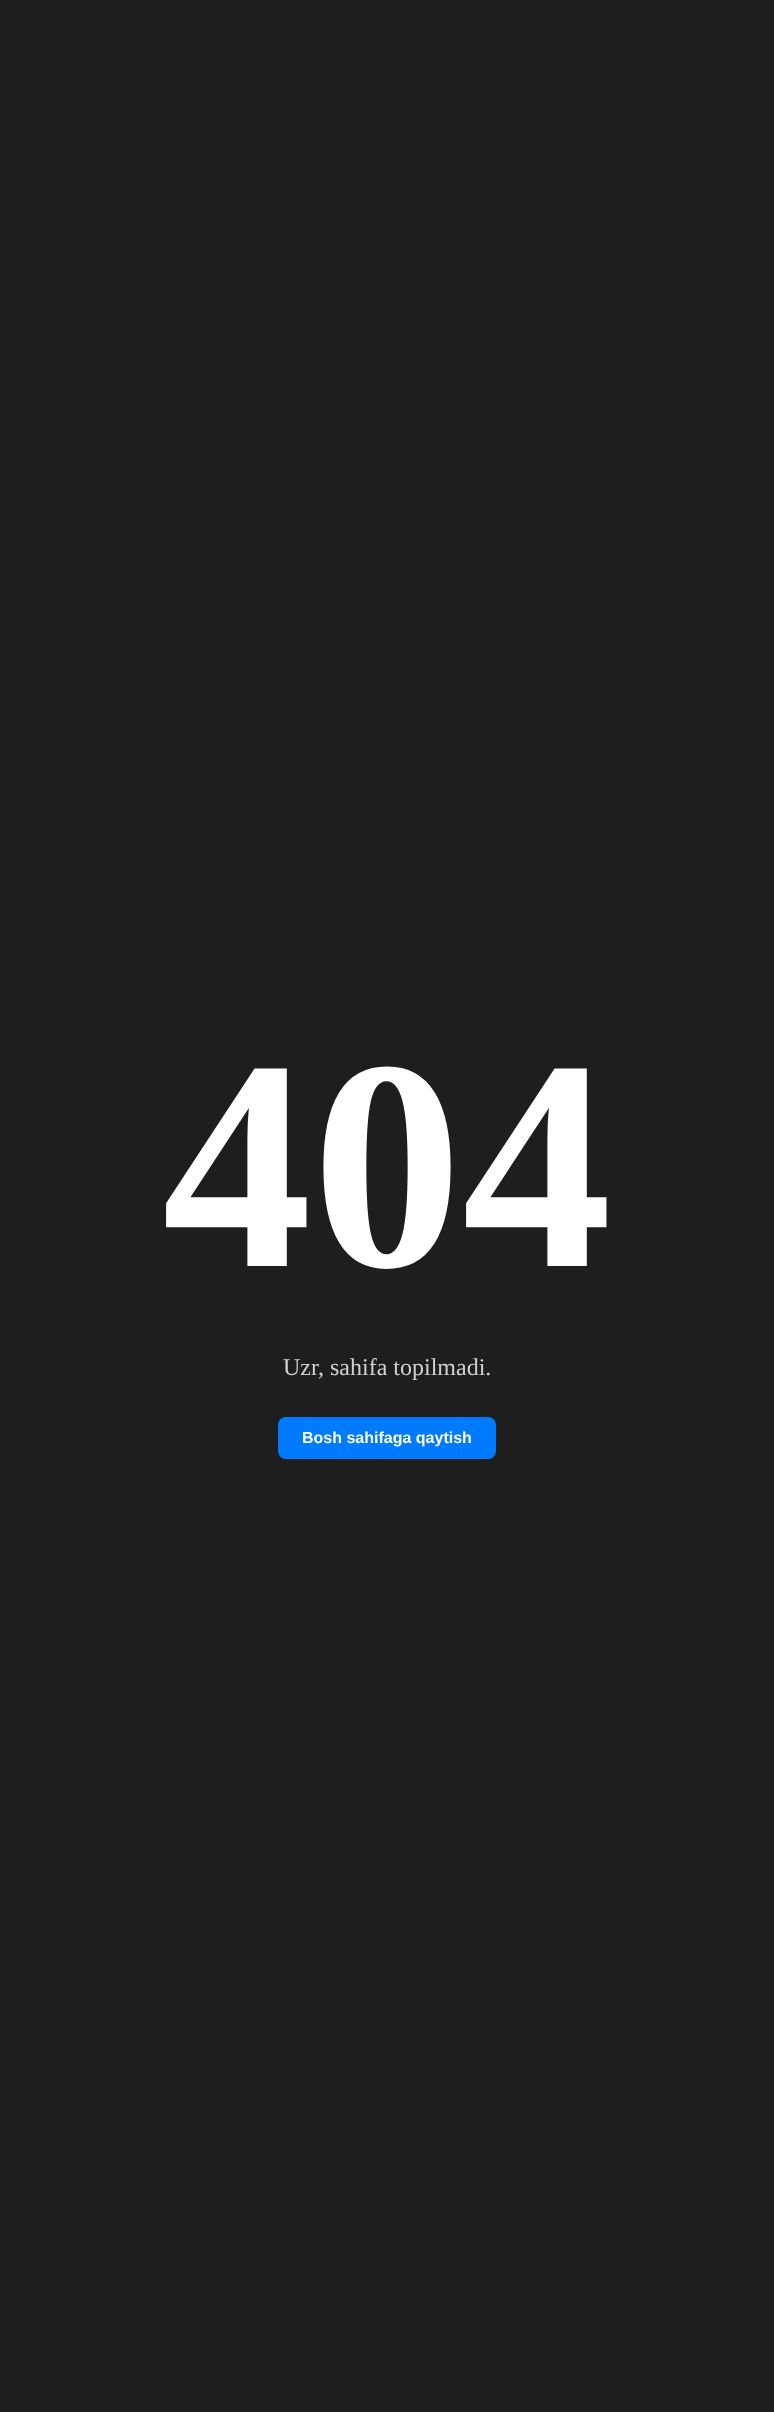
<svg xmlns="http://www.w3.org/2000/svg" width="774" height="2412">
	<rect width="100%" height="100%" fill="#1E1E1E" />
	<text x="162" y="1266" font-family="Liberation Serif" font-size="300" font-weight="700" fill="#FFFFFF">404</text>
	<text x="283" y="1375" font-family="Liberation Serif" font-size="24" fill="#D1D1D1">Uzr, sahifa topilmadi.</text>
	<rect x="278" y="1417" width="218" height="42" rx="8" fill="#007BFF" />
	<text x="302" y="1443" font-family="Liberation Sans" font-size="16" font-weight="700" fill="#FFFFFF">Bosh sahifaga qaytish</text>
</svg>
